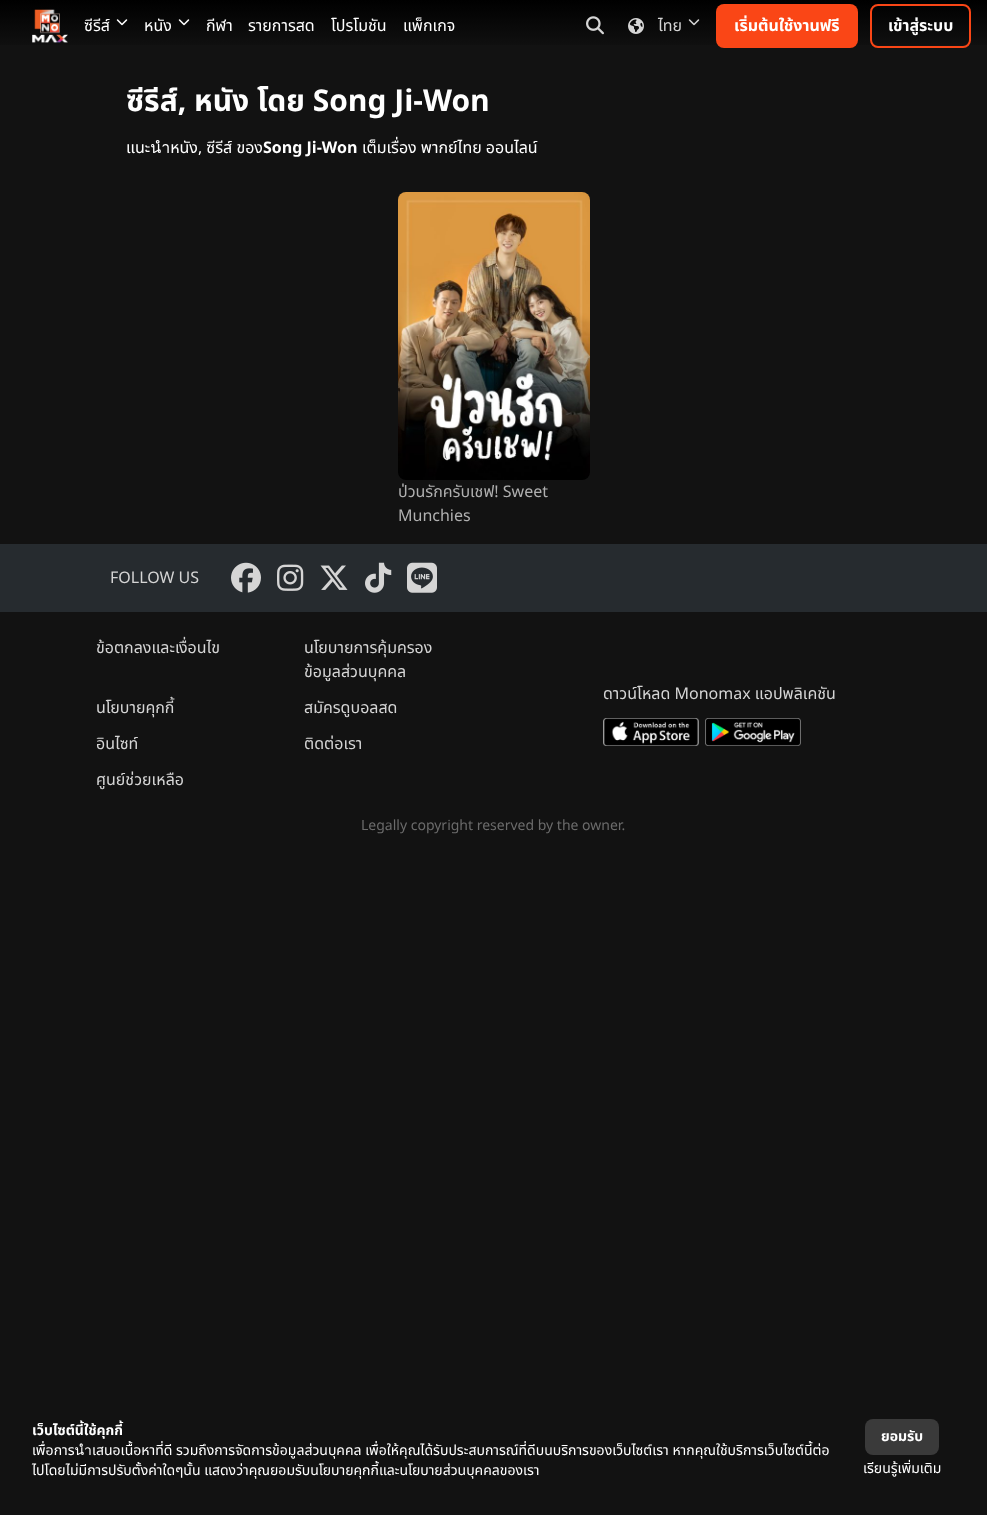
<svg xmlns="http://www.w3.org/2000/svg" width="987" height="1515">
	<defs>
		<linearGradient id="g1" gradientUnits="userSpaceOnUse" x1="494" y1="0" x2="494" y2="52"><stop offset="0" stop-color="#000000" /><stop offset="1" stop-color="#121212" /></linearGradient>
		<clipPath id="clip1"><rect x="398" y="480" width="192" height="48" /></clipPath>
	</defs>
	<rect width="100%" height="100%" fill="#121212" />
	<rect x="0" y="0" width="987" height="45" fill="url(#g1)" />
	<image x="32" y="9" width="36" height="34" href="assets/img1.png" />
	<text x="84" y="31" font-family="Noto Sans Thai" font-size="16" fill="#FFFFFF">ซีรีส์</text>
	<image x="116" y="19" width="12" height="7" href="assets/img2.png" />
	<text x="144" y="31" font-family="Noto Sans Thai" font-size="16" fill="#FFFFFF">หนัง</text>
	<image x="178" y="19" width="12" height="7" href="assets/img2.png" />
	<g font-family="Noto Sans Thai" font-size="16" fill="#FFFFFF">
		<text x="206" y="31">กีฬา</text>
		<text x="248" y="31">รายการสด</text>
		<text x="331" y="31">โปรโมชัน</text>
		<text x="403" y="31">แพ็กเกจ</text>
	</g>
	<image x="586" y="16" width="18" height="19" href="assets/img3.png" />
	<image x="628" y="18" width="16" height="16" href="assets/img4.png" />
	<text x="658" y="31" font-family="Noto Sans Thai" font-size="16" fill="#D5D5D5">ไทย</text>
	<image x="688" y="19" width="12" height="7" href="assets/img5.png" />
	<rect x="716" y="4" width="142" height="44" rx="8" fill="#FA4616" />
	<text x="734" y="31" font-family="Noto Sans Thai" font-size="16" font-weight="700" fill="#FFFFFF">เริ่มต้นใช้งานฟรี</text>
	<rect x="871" y="5" width="99" height="42" rx="7" fill="none" stroke="#FA4616" stroke-width="2" />
	<text x="888" y="31" font-family="Noto Sans Thai" font-size="16" font-weight="700" fill="#FFFFFF">เข้าสู่ระบบ</text>
	<text x="126" y="111" font-family="Noto Sans Thai" font-size="30" font-weight="700" fill="#FFFFFF">ซีรีส์, หนัง โดย Song Ji-Won</text>
	<text x="126" y="153" font-family="Noto Sans Thai" font-size="16" fill="#FFFFFF">แนะนำหนัง, ซีรีส์ ของ</text>
	<text x="263" y="153" font-family="Noto Sans Thai" font-size="16" font-weight="700" fill="#FFFFFF">Song Ji-Won</text>
	<text x="362" y="153" font-family="Noto Sans Thai" font-size="16" fill="#FFFFFF">เต็มเรื่อง พากย์ไทย ออนไลน์</text>
	<image x="398" y="192" width="192" height="288" href="assets/img6.png" />
	<g clip-path="url(#clip1)">
		<text x="398" y="497" font-family="Noto Sans Thai" font-size="16" fill="#B0B0B0">ป่วนรักครับเชฟ! Sweet</text>
	</g>
	<text x="398" y="521" font-family="Noto Sans Thai" font-size="16" fill="#B0B0B0">Munchies</text>
	<rect x="0" y="544" width="987" height="68" fill="#262B2F" />
	<text x="110" y="583" font-family="Noto Sans Thai" font-size="16" fill="#D5D5D5">FOLLOW US</text>
	<image x="231" y="562" width="30" height="31" href="assets/img7.png" />
	<image x="277" y="564" width="27" height="27" href="assets/img8.png" />
	<image x="320" y="565" width="28" height="25" href="assets/img9.png" />
	<image x="365" y="562" width="27" height="31" href="assets/img10.png" />
	<image x="407" y="562" width="30" height="31" href="assets/img11.png" />
	<g font-family="Noto Sans Thai" font-size="16" fill="#D5D5D5">
		<text x="96" y="653">ข้อตกลงและเงื่อนไข</text>
		<text x="304" y="653">นโยบายการคุ้มครอง</text>
		<text x="304" y="677">ข้อมูลส่วนบุคคล</text>
		<text x="96" y="713">นโยบายคุกกี้</text>
		<text x="304" y="713">สมัครดูบอลสด</text>
		<text x="96" y="749">อินไซท์</text>
		<text x="304" y="749">ติดต่อเรา</text>
		<text x="96" y="785">ศูนย์ช่วยเหลือ</text>
		<text x="603" y="699">ดาวน์โหลด Monomax แอปพลิเคชัน</text>
	</g>
	<image x="603" y="718" width="96" height="28" href="assets/img12.png" />
	<image x="705" y="718" width="96" height="28" href="assets/img13.png" />
	<text x="361" y="830" font-family="Noto Sans Thai" font-size="14" fill="#6B6B6B">Legally copyright reserved by the owner.</text>
	<text x="32" y="1435" font-family="Noto Sans Thai" font-size="14" font-weight="700" fill="#FFFFFF">เว็บไซต์นี้ใช้คุกกี้</text>
	<g font-family="Noto Sans Thai" font-size="14" fill="#FFFFFF">
		<text x="32" y="1455">เพื่อการนำเสนอเนื้อหาที่ดี รวมถึงการจัดการข้อมูลส่วนบุคคล เพื่อให้คุณได้รับประสบการณ์ที่ดีบนบริการของเว็บไซต์เรา หากคุณใช้บริการเว็บไซต์นี้ต่อ</text>
		<text x="32" y="1475">ไปโดยไม่มีการปรับตั้งค่าใดๆนั้น แสดงว่าคุณยอมรับนโยบายคุกกี้และนโยบายส่วนบุคคลของเรา</text>
	</g>
	<rect x="865" y="1419" width="74" height="36" rx="8" fill="#3A3A3A" />
	<text x="881" y="1441" font-family="Noto Sans Thai" font-size="14" font-weight="700" fill="#FFFFFF">ยอมรับ</text>
	<text x="863" y="1473" font-family="Noto Sans Thai" font-size="14" fill="#FFFFFF">เรียนรู้เพิ่มเติม</text>
</svg>
